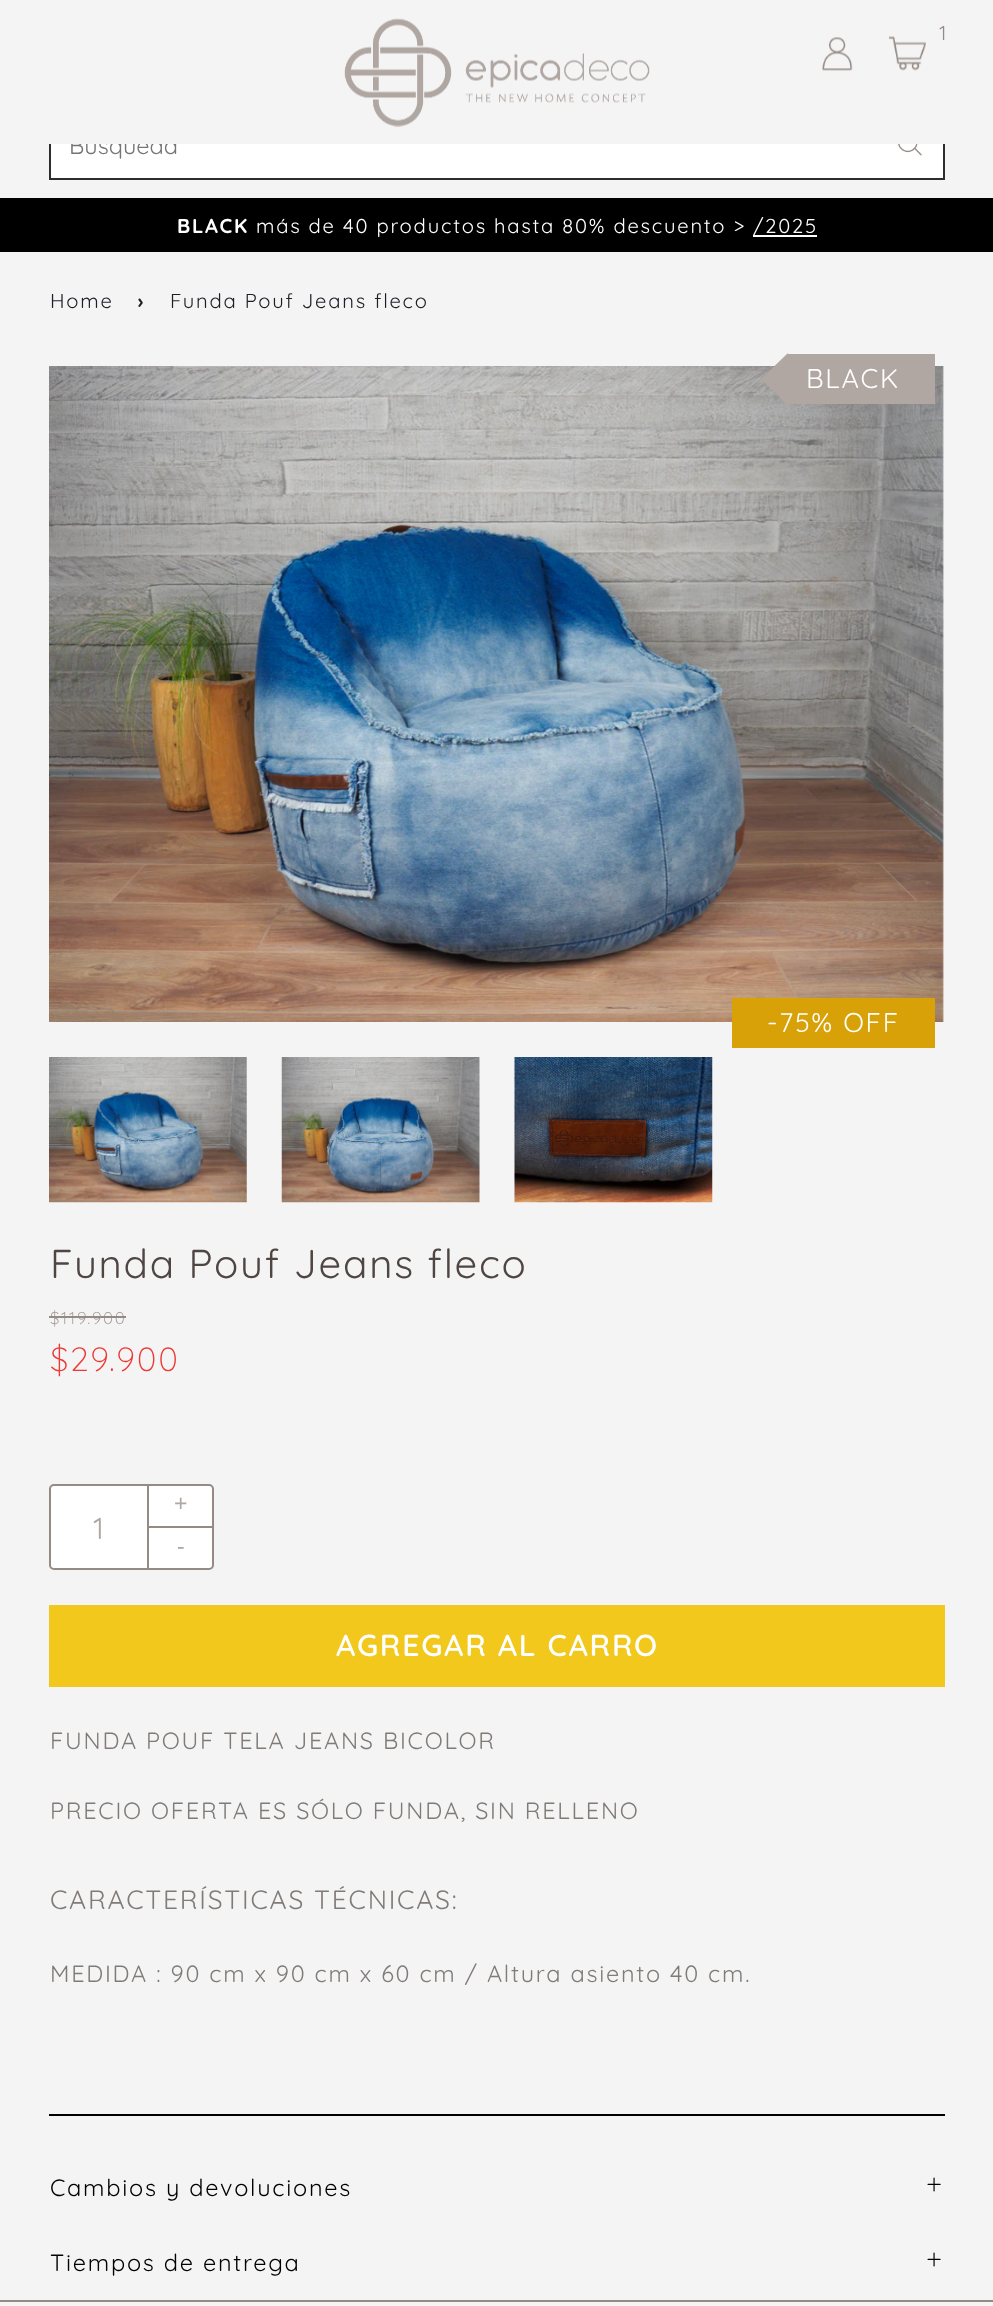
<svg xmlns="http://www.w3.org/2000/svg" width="993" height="2306">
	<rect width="100%" height="100%" fill="#F4F4F4" />
	<rect x="51" y="144" width="892" height="34" fill="#FFFFFF" />
	<rect x="50" y="111" width="894" height="68" fill="none" stroke="#2D2D2D" stroke-width="2" />
	<text x="69" y="154" font-family="Quicksand" font-size="23.5" fill="#757575">Búsqueda</text>
	<rect x="49" y="110" width="896" height="34" fill="#F4F4F4" />
	<image x="344" y="18" width="306" height="109" href="assets/img1.png" />
	<text x="939" y="40" font-family="Quicksand" font-size="20.2" letter-spacing="1.75" fill="#958A84">1</text>
	<image x="889" y="36" width="37" height="35" href="assets/img2.png" />
	<image x="822" y="37" width="31" height="34" href="assets/img3.png" />
	<image x="897" y="144" width="25" height="12" href="assets/img4.png" />
	<rect x="0" y="198" width="993" height="54" fill="#000000" />
	<text x="177" y="233" font-family="Quicksand" font-size="20.2" font-weight="700" letter-spacing="1.75" fill="#FFFFFF">BLACK</text>
	<text x="256" y="233" font-family="Quicksand" font-size="20.2" letter-spacing="1.75" fill="#FFFFFF">más de 40 productos hasta 80% descuento &gt;</text>
	<rect x="753" y="235" width="64" height="2" fill="#FFFFFF" />
	<text x="753" y="233" font-family="Quicksand" font-size="20.2" letter-spacing="1.75" fill="#FFFFFF">/2025</text>
	<text x="50" y="308" font-family="Quicksand" font-size="20.2" letter-spacing="1.75" fill="#1E1E27">Home</text>
	<text x="138" y="308" font-family="Quicksand" font-size="20.2" font-weight="700" letter-spacing="1.75" fill="#1E1E27">›</text>
	<text x="170" y="308" font-family="Quicksand" font-size="20.2" letter-spacing="1.75" fill="#1E1E27">Funda Pouf Jeans fleco</text>
	<image x="49" y="366" width="895" height="656" href="assets/img5.png" />
	<rect x="788" y="354" width="147" height="50" fill="#B1A7A2" />
	<path d="M788 353V405L761 379Z" fill="#B1A7A2" />
	<text x="806" y="388" font-family="Quicksand" font-size="27" letter-spacing="1.75" fill="#FFFFFF">BLACK</text>
	<rect x="732" y="998" width="203" height="50" fill="#D8A107" />
	<text x="767" y="1032" font-family="Quicksand" font-size="27" letter-spacing="1.75" fill="#FFFFFF">-75% OFF</text>
	<image x="49" y="1057" width="198" height="146" href="assets/img6.png" />
	<image x="281" y="1057" width="199" height="146" href="assets/img7.png" />
	<image x="514" y="1057" width="199" height="146" href="assets/img8.png" />
	<text x="50" y="1278" font-family="Quicksand" font-size="40.25" letter-spacing="1.75" fill="#4F4643">Funda Pouf Jeans fleco</text>
	<text x="50" y="1324" font-family="Quicksand" font-size="17" font-weight="300" letter-spacing="1.75" fill="#958A84">$119.900</text>
	<rect x="49" y="1316" width="77" height="2" fill="#958A84" />
	<text x="50" y="1371" font-family="Quicksand" font-size="33.5" font-weight="300" letter-spacing="1.75" fill="#ED3833">$29.900</text>
	<rect x="50" y="1485" width="163" height="84" rx="4" fill="#FFFFFF" stroke="#958A84" stroke-width="2" />
	<text x="93" y="1539" font-family="Quicksand" font-size="30.25" fill="#B1A7A2">1</text>
	<rect x="147" y="1526" width="67" height="2" fill="#958A84" />
	<rect x="147" y="1484" width="2" height="86" fill="#958A84" />
	<g font-family="Liberation Sans" font-size="23" letter-spacing="1.75" fill="#B1A7A2">
		<text x="174" y="1511">+</text>
		<text x="177" y="1554">-</text>
	</g>
	<rect x="49" y="1605" width="896" height="82" fill="#F2C81D" />
	<text x="336" y="1656" font-family="Quicksand" font-size="30.25" font-weight="600" letter-spacing="1.75" fill="#FFFFFF">AGREGAR AL CARRO</text>
	<g font-family="Quicksand" font-size="23.5" letter-spacing="1.75" fill="#807B77">
		<text x="50" y="1749">FUNDA POUF TELA JEANS BICOLOR</text>
		<text x="50" y="1819">PRECIO OFERTA ES SÓLO FUNDA, SIN RELLENO</text>
	</g>
	<text x="50" y="1909" font-family="Quicksand" font-size="26.5" letter-spacing="1.75" fill="#807B77">CARACTERÍSTICAS TÉCNICAS:</text>
	<text x="50" y="1982" font-family="Quicksand" font-size="23.5" letter-spacing="1.75" fill="#807B77">MEDIDA : 90 cm x 90 cm x 60 cm / Altura asiento 40 cm.</text>
	<rect x="49" y="2114" width="896" height="2" fill="#000000" />
	<text x="50" y="2196" font-family="Quicksand" font-size="23.5" letter-spacing="1.75" fill="#000000">Cambios y devoluciones</text>
	<text x="926" y="2194" font-family="Quicksand" font-size="29" font-weight="300" letter-spacing="1.75" fill="#000000">+</text>
	<text x="50" y="2271" font-family="Quicksand" font-size="23.5" letter-spacing="1.75" fill="#000000">Tiempos de entrega</text>
	<text x="926" y="2269" font-family="Quicksand" font-size="29" font-weight="300" letter-spacing="1.75" fill="#000000">+</text>
	<rect x="0" y="2300" width="993" height="2" fill="#958A84" />
</svg>
